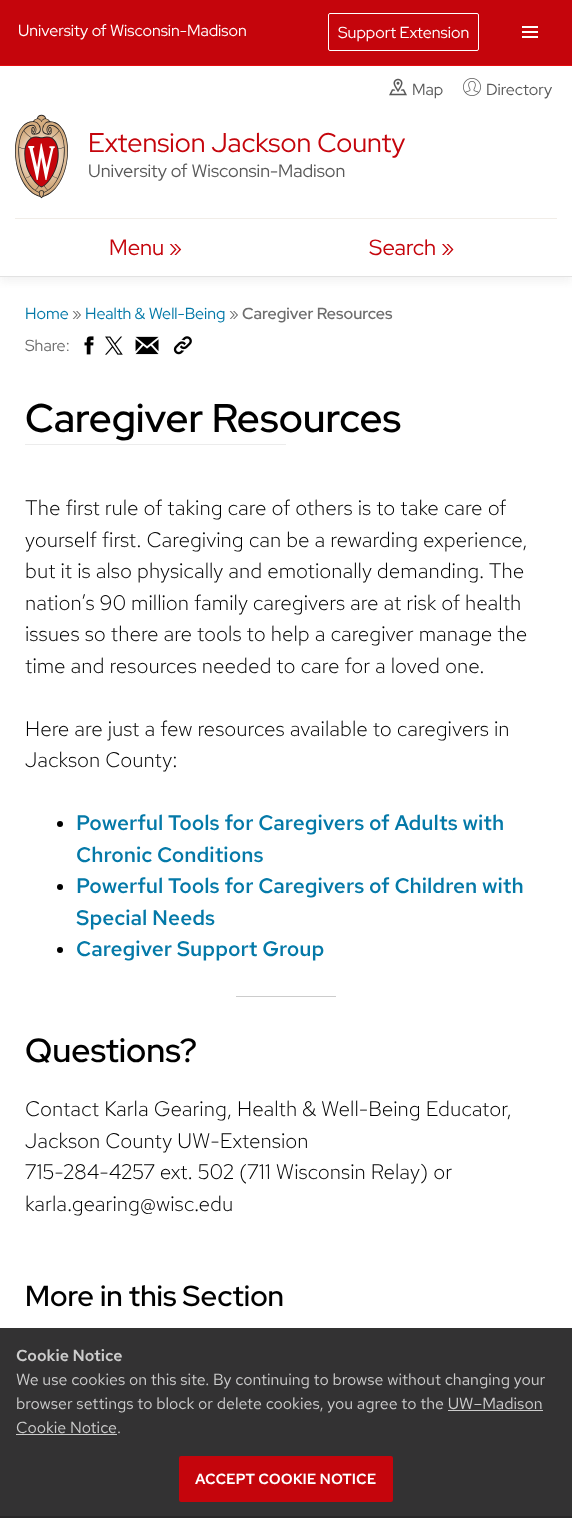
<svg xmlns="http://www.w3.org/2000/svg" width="572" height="1518">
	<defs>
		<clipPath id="clip1"><rect x="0" y="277" width="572" height="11" /></clipPath>
	</defs>
	<rect width="100%" height="100%" fill="#FFFFFF" />
	<rect x="0" y="1328" width="572" height="188" fill="#333233" />
	<g clip-path="url(#clip1)">
		<rect x="0" y="71" width="572" height="211" fill="#C3C3C3" fill-opacity="0.2" filter="blur(4.5px)" />
	</g>
	<rect x="0" y="0" width="572" height="65" fill="#C5050C" />
	<rect x="0" y="65" width="572" height="1" fill="#E40B10" />
	<text x="18" y="36" font-family="Red Hat Display" font-size="16" fill="#FFFFFF">University of Wisconsin-Madison</text>
	<rect x="328.5" y="13.5" width="150" height="37" rx="1.5" fill="none" stroke="#FFFFFF" />
	<text x="338" y="38" font-family="Red Hat Display" font-size="16" fill="#FFFFFF">Support Extension</text>
	<image x="522" y="26" width="16" height="12" href="assets/img1.png" />
	<rect x="0" y="276" width="572" height="1" fill="#E2E2E2" />
	<image x="389" y="78" width="18" height="18" href="assets/img2.png" />
	<text x="412" y="95" font-family="Red Hat Display" font-size="16" fill="#595959">Map</text>
	<image x="463" y="78" width="18" height="18" href="assets/img3.png" />
	<text x="486" y="95" font-family="Red Hat Display" font-size="16" fill="#595959">Directory</text>
	<rect x="15" y="218" width="542" height="1" fill="#F1EDE8" />
	<image x="15" y="114" width="53" height="85" href="assets/img4.png" />
	<text x="88" y="152" font-family="Red Hat Display" font-size="27" fill="#C5050C">Extension Jackson County</text>
	<text x="88" y="177" font-family="Red Hat Display" font-size="18" fill="#595959">University of Wisconsin-Madison</text>
	<g font-family="Red Hat Display" font-size="22" fill="#C5050C">
		<text x="109" y="255">Menu »</text>
		<text x="369" y="255">Search »</text>
	</g>
	<text x="25" y="319" font-family="Red Hat Display" font-size="16" fill="#0479A8">Home</text>
	<text x="72" y="319" font-family="Red Hat Display" font-size="16" fill="#6D6D6D">»</text>
	<text x="85" y="319" font-family="Red Hat Display" font-size="16" fill="#0479A8">Health &amp; Well-Being</text>
	<text x="229" y="319" font-family="Red Hat Display" font-size="16" fill="#6D6D6D">»</text>
	<text x="242" y="319" font-family="Red Hat Display" font-size="16" font-weight="600" fill="#6D6D6D">Caregiver Resources</text>
	<text x="25" y="351" font-family="Red Hat Display" font-size="16" fill="#6D6D6D">Share:</text>
	<image x="84" y="336" width="10" height="19" href="assets/img5.png" />
	<image x="105" y="336" width="18" height="19" href="assets/img6.png" />
	<image x="135" y="336" width="24" height="19" href="assets/img7.png" />
	<image x="173" y="336" width="19" height="19" href="assets/img8.png" />
	<text x="25" y="432" font-family="Red Hat Display" font-size="40" font-weight="600" fill="#000000">Caregiver Resources</text>
	<rect x="25" y="444" width="261" height="1" fill="#ECECEC" />
	<g font-family="Red Hat Text" font-size="21" font-weight="300" fill="#000000">
		<text x="25" y="515">The first rule of taking care of others is to take care of</text>
		<text x="25" y="547">yourself first. Caregiving can be a rewarding experience,</text>
		<text x="25" y="578">but it is also physically and emotionally demanding. The</text>
		<text x="25" y="610">nation’s 90 million family caregivers are at risk of health</text>
		<text x="25" y="641">issues so there are tools to help a caregiver manage the</text>
		<text x="25" y="673">time and resources needed to care for a loved one.</text>
		<text x="25" y="736">Here are just a few resources available to caregivers in</text>
		<text x="25" y="767">Jackson County:</text>
	</g>
	<circle cx="60" cy="824" r="3" fill="#000000" />
	<g font-family="Red Hat Text" font-size="21" font-weight="600" fill="#0479A8">
		<text x="76" y="830">Powerful Tools for Caregivers of Adults with</text>
		<text x="76" y="862">Chronic Conditions</text>
	</g>
	<circle cx="60" cy="887" r="3" fill="#000000" />
	<g font-family="Red Hat Text" font-size="21" font-weight="600" fill="#0479A8">
		<text x="76" y="893">Powerful Tools for Caregivers of Children with</text>
		<text x="76" y="925">Special Needs</text>
	</g>
	<circle cx="60" cy="950" r="3" fill="#000000" />
	<text x="76" y="956" font-family="Red Hat Text" font-size="21" font-weight="600" fill="#0479A8">Caregiver Support Group</text>
	<rect x="236" y="996" width="100" height="1" fill="#CCCCCC" />
	<text x="25" y="1062" font-family="Red Hat Display" font-size="33.5" font-weight="600" fill="#000000">Questions?</text>
	<g font-family="Red Hat Text" font-size="21" font-weight="300" fill="#000000">
		<text x="25" y="1116">Contact Karla Gearing, Health &amp; Well-Being Educator,</text>
		<text x="25" y="1148">Jackson County UW-Extension</text>
		<text x="25" y="1179">715-284-4257 ext. 502 (711 Wisconsin Relay) or</text>
		<text x="25" y="1211">karla.gearing@wisc.edu</text>
	</g>
	<text x="25" y="1306" font-family="Red Hat Display" font-size="29" font-weight="600" fill="#000000">More in this Section</text>
	<rect x="0" y="1516" width="572" height="2" fill="#292829" />
	<text x="16" y="1361" font-family="'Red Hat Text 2'" font-size="16" font-weight="600" fill="#CCCCCC">Cookie Notice</text>
	<g font-family="Red Hat Text" font-size="16" fill="#CCCCCC">
		<text x="16" y="1385">We use cookies on this site. By continuing to browse without changing your</text>
		<text x="16" y="1409">browser settings to block or delete cookies, you agree to the UW–Madison</text>
		<text x="16" y="1433">Cookie Notice</text>
	</g>
	<rect x="448" y="1410" width="95" height="1" fill="#CCCCCC" />
	<rect x="16" y="1434" width="101" height="1" fill="#CCCCCC" />
	<text x="117" y="1433" font-family="Red Hat Text" font-size="16" fill="#CCCCCC">.</text>
	<rect x="179" y="1456" width="214" height="46" rx="2" fill="#C5050C" />
	<text x="195" y="1484" font-family="'Red Hat Text 2'" font-size="14.75" font-weight="600" fill="#FFFFFF">ACCEPT COOKIE NOTICE</text>
</svg>
